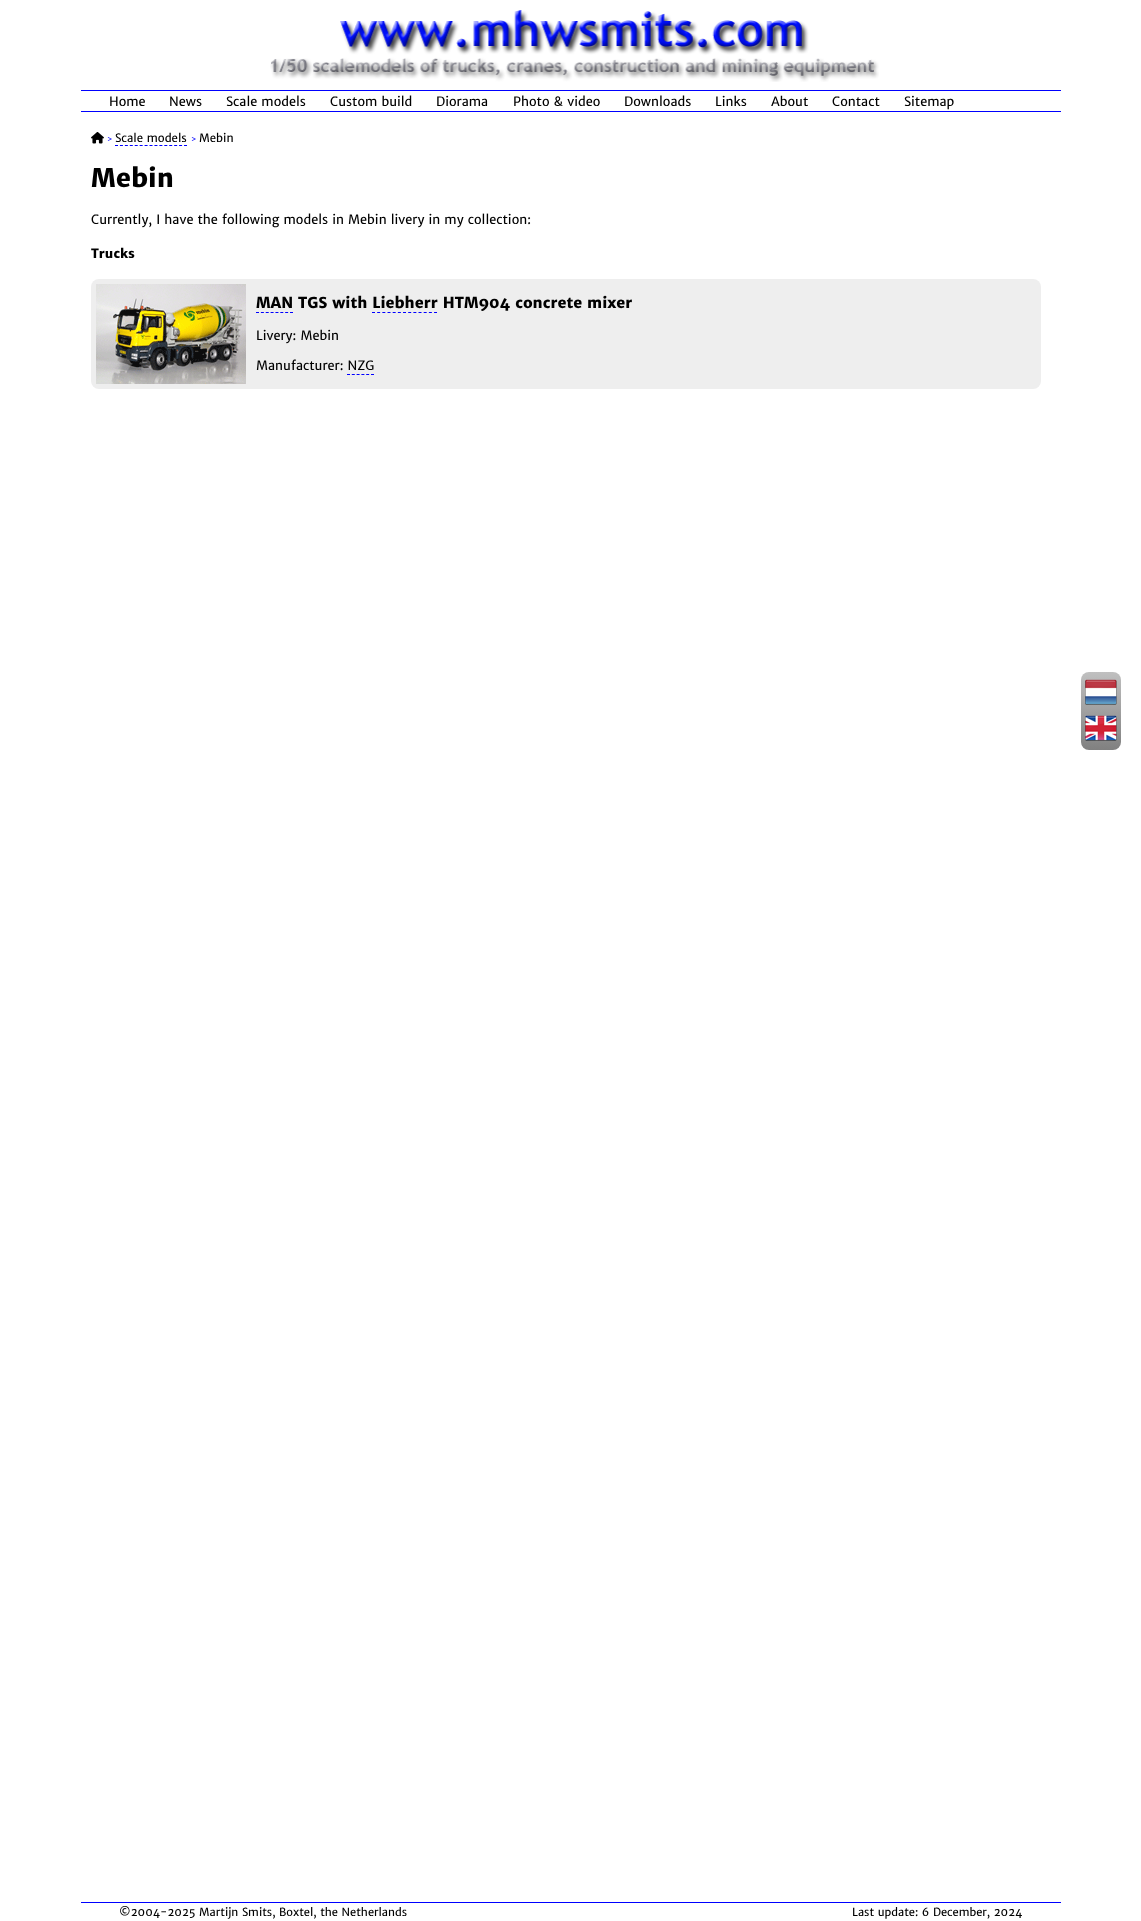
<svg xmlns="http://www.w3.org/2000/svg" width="1141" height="1921">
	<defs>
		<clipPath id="clip1"><rect x="91" y="119" width="960" height="1767" /></clipPath>
		<linearGradient id="g1" gradientUnits="userSpaceOnUse" x1="1101" y1="672" x2="1101" y2="750"><stop offset="0" stop-color="#C0C0C0" /><stop offset="1" stop-color="#808080" /></linearGradient>
	</defs>
	<rect width="100%" height="100%" fill="#FFFFFF" />
	<image x="270" y="10" width="609" height="72" href="assets/img1.png" />
	<rect x="81" y="90" width="980" height="1" fill="#0000FF" />
	<rect x="81" y="111" width="980" height="1" fill="#0000FF" />
	<g font-family="Merriweather Sans" font-size="12.8" fill="#000000">
		<text x="109" y="106">Home</text>
		<text x="169" y="106">News</text>
		<text x="226" y="106">Scale models</text>
		<text x="330" y="106">Custom build</text>
		<text x="436" y="106">Diorama</text>
		<text x="513" y="106">Photo &amp; video</text>
		<text x="624" y="106">Downloads</text>
		<text x="715" y="106">Links</text>
		<text x="771" y="106">About</text>
		<text x="832" y="106">Contact</text>
		<text x="904" y="106">Sitemap</text>
	</g>
	<image x="91" y="132" width="13" height="12" href="assets/img2.png" />
	<text x="107" y="142" font-family="Merriweather Sans" font-size="8" fill="#0000FF">&gt;</text>
	<text x="115" y="142" font-family="Merriweather Sans" font-size="11.5" fill="#000000">Scale models</text>
	<path d="M115 145.5H187" fill="none" stroke="#0000FF" stroke-dasharray="3 1.93" />
	<text x="191" y="142" font-family="Merriweather Sans" font-size="8" fill="#0000FF">&gt;</text>
	<text x="199" y="142" font-family="Merriweather Sans" font-size="11.5" fill="#000000">Mebin</text>
	<text x="91" y="187" font-family="Merriweather Sans" font-size="25.5" font-weight="800" fill="#000000">Mebin</text>
	<text x="91" y="224" font-family="Merriweather Sans" font-size="12.8" fill="#000000">Currently, I have the following models in Mebin livery in my collection:</text>
	<g clip-path="url(#clip1)">
		<text x="91" y="258" font-family="Merriweather Sans" font-size="12.8" font-weight="800" fill="#000000">Trucks</text>
	</g>
	<rect x="91" y="279" width="950" height="110" rx="8" fill="#EEEEEE" />
	<image x="96" y="284" width="150" height="100" href="assets/img3.png" />
	<text x="256" y="308" font-family="Merriweather Sans" font-size="15" font-weight="800" fill="#000000">MAN TGS with Liebherr HTM904 concrete mixer</text>
	<path d="M256 312.5H293" fill="none" stroke="#0000FF" stroke-dasharray="3 1.86" />
	<path d="M372 312.5H437" fill="none" stroke="#0000FF" stroke-dasharray="3 2.17" />
	<g font-family="Merriweather Sans" font-size="12.8" fill="#000000">
		<text x="256" y="340">Livery: Mebin</text>
		<text x="256" y="370">Manufacturer: NZG</text>
	</g>
	<path d="M347 374.5H374" fill="none" stroke="#0000FF" stroke-dasharray="3 1.8" />
	<rect x="81" y="1902" width="980" height="1" fill="#0000FF" />
	<g font-family="Merriweather Sans" font-size="11.2" fill="#000000">
		<text x="119" y="1916">©2004-2025 Martijn Smits, Boxtel, the Netherlands</text>
		<text x="852" y="1916">Last update: 6 December, 2024</text>
	</g>
	<rect x="1081" y="672" width="40" height="78" rx="8" fill="url(#g1)" />
	<image x="1085" y="679" width="32" height="26" href="assets/img4.png" />
	<image x="1085" y="715" width="32" height="26" href="assets/img5.png" />
</svg>
